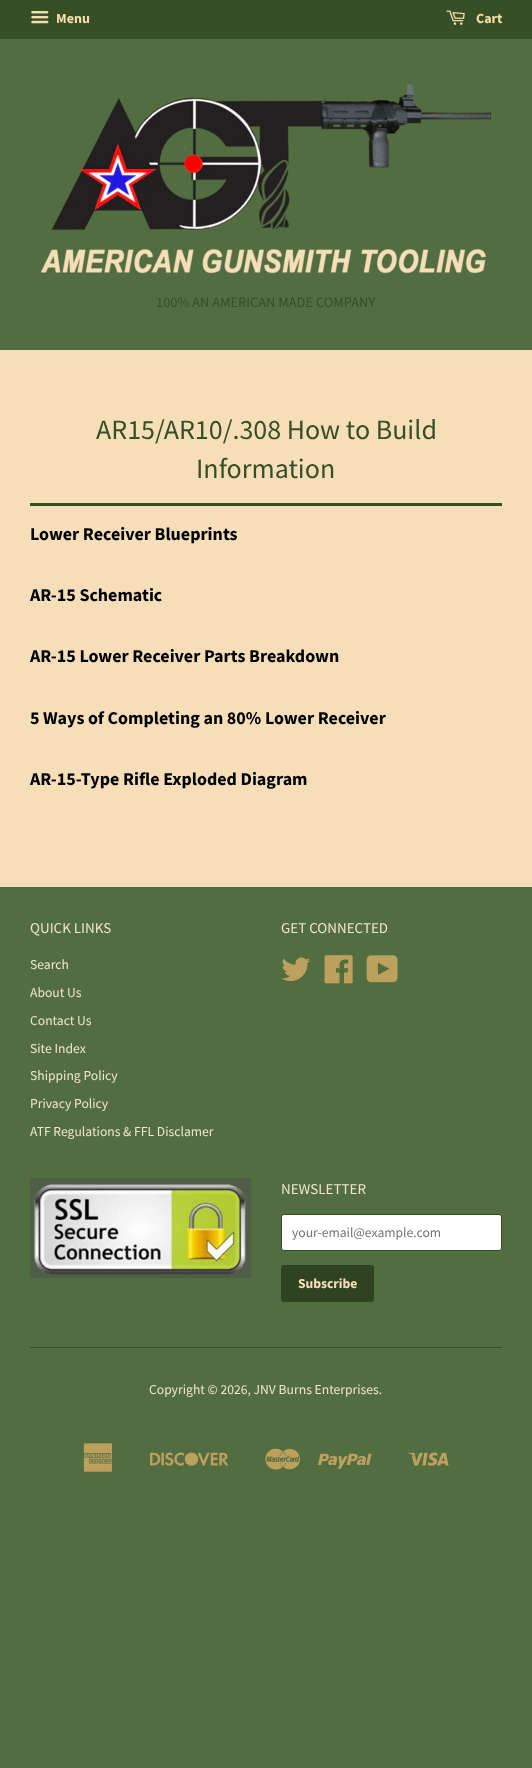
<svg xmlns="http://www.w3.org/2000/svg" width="532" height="1768">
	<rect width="100%" height="100%" fill="#526E41" />
	<rect x="0" y="350" width="532" height="537" fill="#F6DEB9" />
	<rect x="0" y="0" width="532" height="39" fill="#374F27" />
	<image x="31" y="11" width="18" height="13" href="assets/img1.png" />
	<text x="56" y="23" font-family="Source Sans Pro" font-size="14" font-weight="700" fill="#F6DEA9">Menu</text>
	<image x="446" y="10" width="19" height="15" href="assets/img2.png" />
	<text x="476" y="23" font-family="Source Sans Pro" font-size="14" font-weight="700" fill="#F6DEA9">Cart</text>
	<image x="41" y="84" width="450" height="190" href="assets/img3.png" />
	<text x="156" y="307" font-family="Source Sans Pro" font-size="14.4" fill="#374F27">100% AN AMERICAN MADE COMPANY</text>
	<rect x="30" y="503" width="472" height="3" fill="#374F27" />
	<g font-family="Source Sans Pro" font-size="28" fill="#374F27">
		<text x="96" y="439">AR15/AR10/.308 How to Build</text>
		<text x="196" y="478">Information</text>
	</g>
	<g font-family="Source Sans Pro" font-size="18" font-weight="700" fill="#000000">
		<text x="30" y="540">Lower Receiver Blueprints</text>
		<text x="30" y="601">AR-15 Schematic</text>
		<text x="30" y="662">AR-15 Lower Receiver Parts Breakdown</text>
		<text x="30" y="724">5 Ways of Completing an 80% Lower Receiver</text>
		<text x="30" y="785">AR-15-Type Rifle Exploded Diagram</text>
	</g>
	<text x="30" y="933" font-family="Source Sans Pro" font-size="15" fill="#F0E4C9">QUICK LINKS</text>
	<g font-family="Source Sans Pro" font-size="13.6" fill="#F0E4C9">
		<text x="30" y="969">Search</text>
		<text x="30" y="997">About Us</text>
		<text x="30" y="1025">Contact Us</text>
		<text x="30" y="1053">Site Index</text>
		<text x="30" y="1080">Shipping Policy</text>
		<text x="30" y="1108">Privacy Policy</text>
		<text x="30" y="1136">ATF Regulations &amp; FFL Disclamer</text>
	</g>
	<text x="281" y="933" font-family="Source Sans Pro" font-size="15" fill="#F0E4C9">GET CONNECTED</text>
	<image x="281" y="957" width="30" height="24" href="assets/img4.png" />
	<image x="324" y="955" width="29" height="29" href="assets/img5.png" />
	<image x="366" y="955" width="32" height="28" href="assets/img6.png" />
	<image x="30" y="1178" width="221" height="100" href="assets/img7.png" />
	<text x="281" y="1194" font-family="Source Sans Pro" font-size="15" fill="#F0E4C9">NEWSLETTER</text>
	<rect x="281.5" y="1214.5" width="220" height="36" rx="2.5" fill="#FFFFFF" stroke="#374F27" />
	<text x="292" y="1237" font-family="Source Sans Pro" font-size="13.6" fill="#757575">your-email@example.com</text>
	<rect x="281" y="1265" width="93" height="37" rx="3" fill="#2F4321" />
	<text x="298" y="1288" font-family="Source Sans Pro" font-size="13.6" font-weight="700" fill="#F6DEB9">Subscribe</text>
	<rect x="30" y="1347" width="472" height="1" fill="#374F27" />
	<text x="149" y="1394" font-family="Source Sans Pro" font-size="13.6" fill="#F0E4C9">Copyright © 2026, JNV Burns Enterprises.</text>
	<image x="83" y="1443" width="30" height="29" href="assets/img8.png" />
	<image x="150" y="1452" width="79" height="14" href="assets/img9.png" />
	<image x="265" y="1448" width="35" height="22" href="assets/img10.png" />
	<image x="318" y="1453" width="54" height="16" href="assets/img11.png" />
	<image x="408" y="1452" width="41" height="14" href="assets/img12.png" />
</svg>
